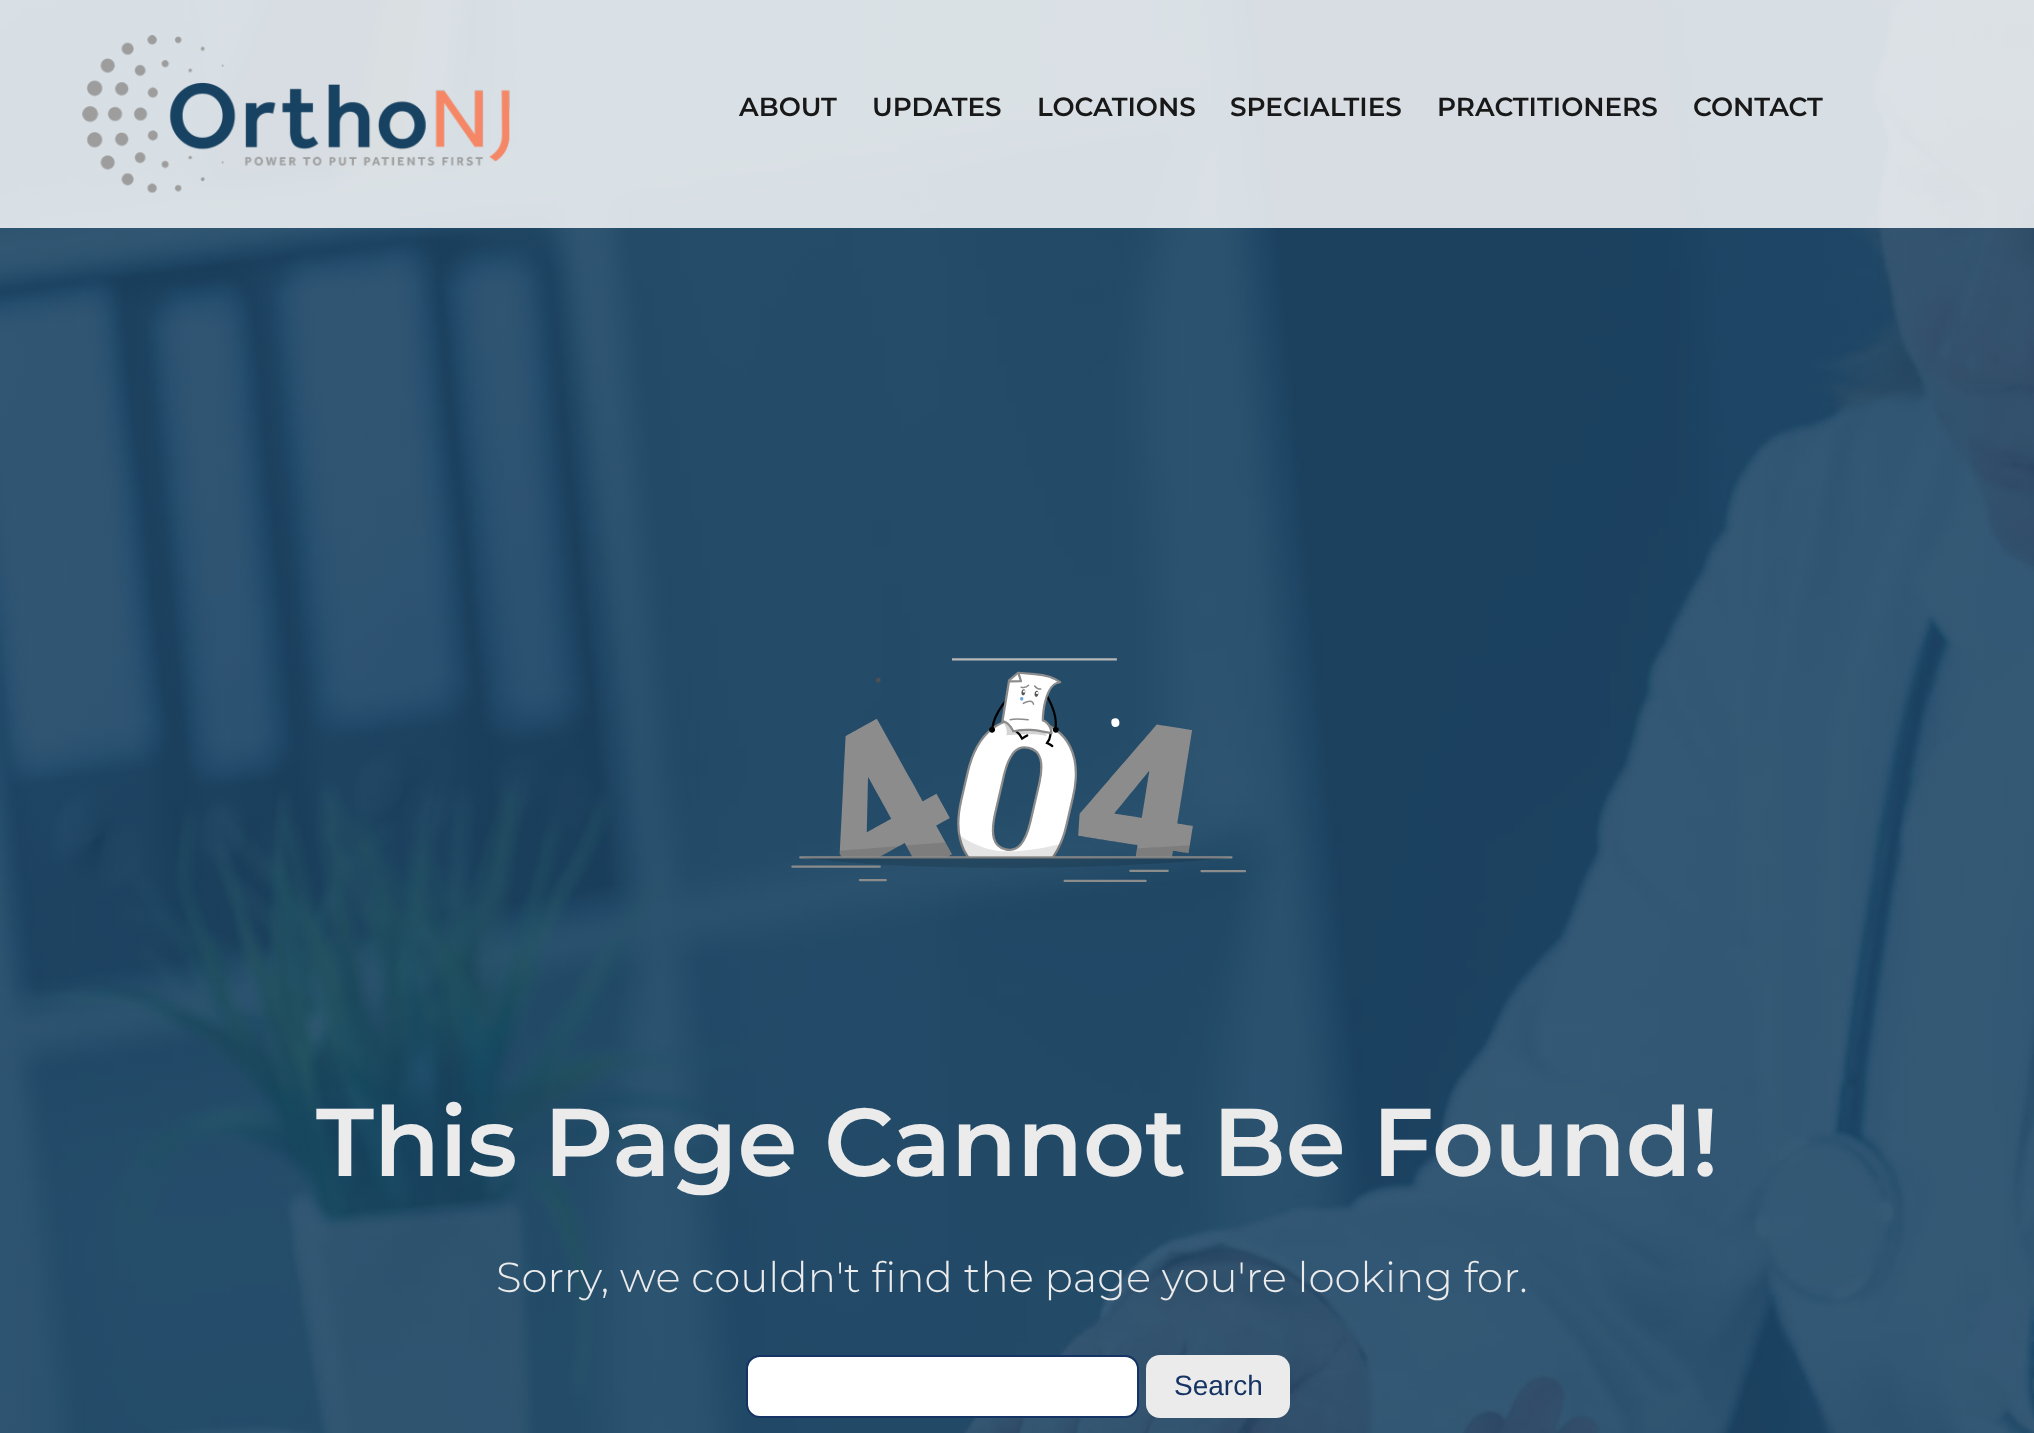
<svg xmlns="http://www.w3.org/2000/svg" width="2034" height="1433">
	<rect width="100%" height="100%" fill="#FFFFFF" />
	<image x="0" y="0" width="2034" height="1433" href="assets/img2.png" />
	<rect x="0" y="0" width="2034" height="228" fill="#FFFFFF" fill-opacity="0.58" />
	<rect x="0" y="0" width="2034" height="228" fill="#FFFFFF" fill-opacity="0.58" />
	<image x="82" y="35" width="428" height="158" href="assets/img1.png" />
	<g font-family="Montserrat" font-size="26.25" font-weight="600" fill="#181818">
		<text x="739" y="116">ABOUT</text>
		<text x="872" y="116">UPDATES</text>
		<text x="1037" y="116">LOCATIONS</text>
		<text x="1230" y="116">SPECIALTIES</text>
		<text x="1437" y="116">PRACTITIONERS</text>
		<text x="1693" y="116">CONTACT</text>
	</g>
	<image x="791" y="658" width="456" height="224" href="assets/img3.png" />
	<text x="316" y="1176" font-family="Montserrat" font-size="96.25" font-weight="600" fill="#EBEBEB">This Page Cannot Be Found!</text>
	<text x="496" y="1292" font-family="Montserrat" font-size="42" font-weight="300" fill="#EBEBEB">Sorry, we couldn't find the page you're looking for.</text>
	<rect x="747" y="1356" width="391" height="61" rx="13" fill="#FFFFFF" stroke="#153363" stroke-width="2" />
	<rect x="1146" y="1355" width="144" height="63" rx="14" fill="#EBEBEB" />
	<text x="1174" y="1395" font-family="Liberation Sans" font-size="28" fill="#153363">Search</text>
</svg>
